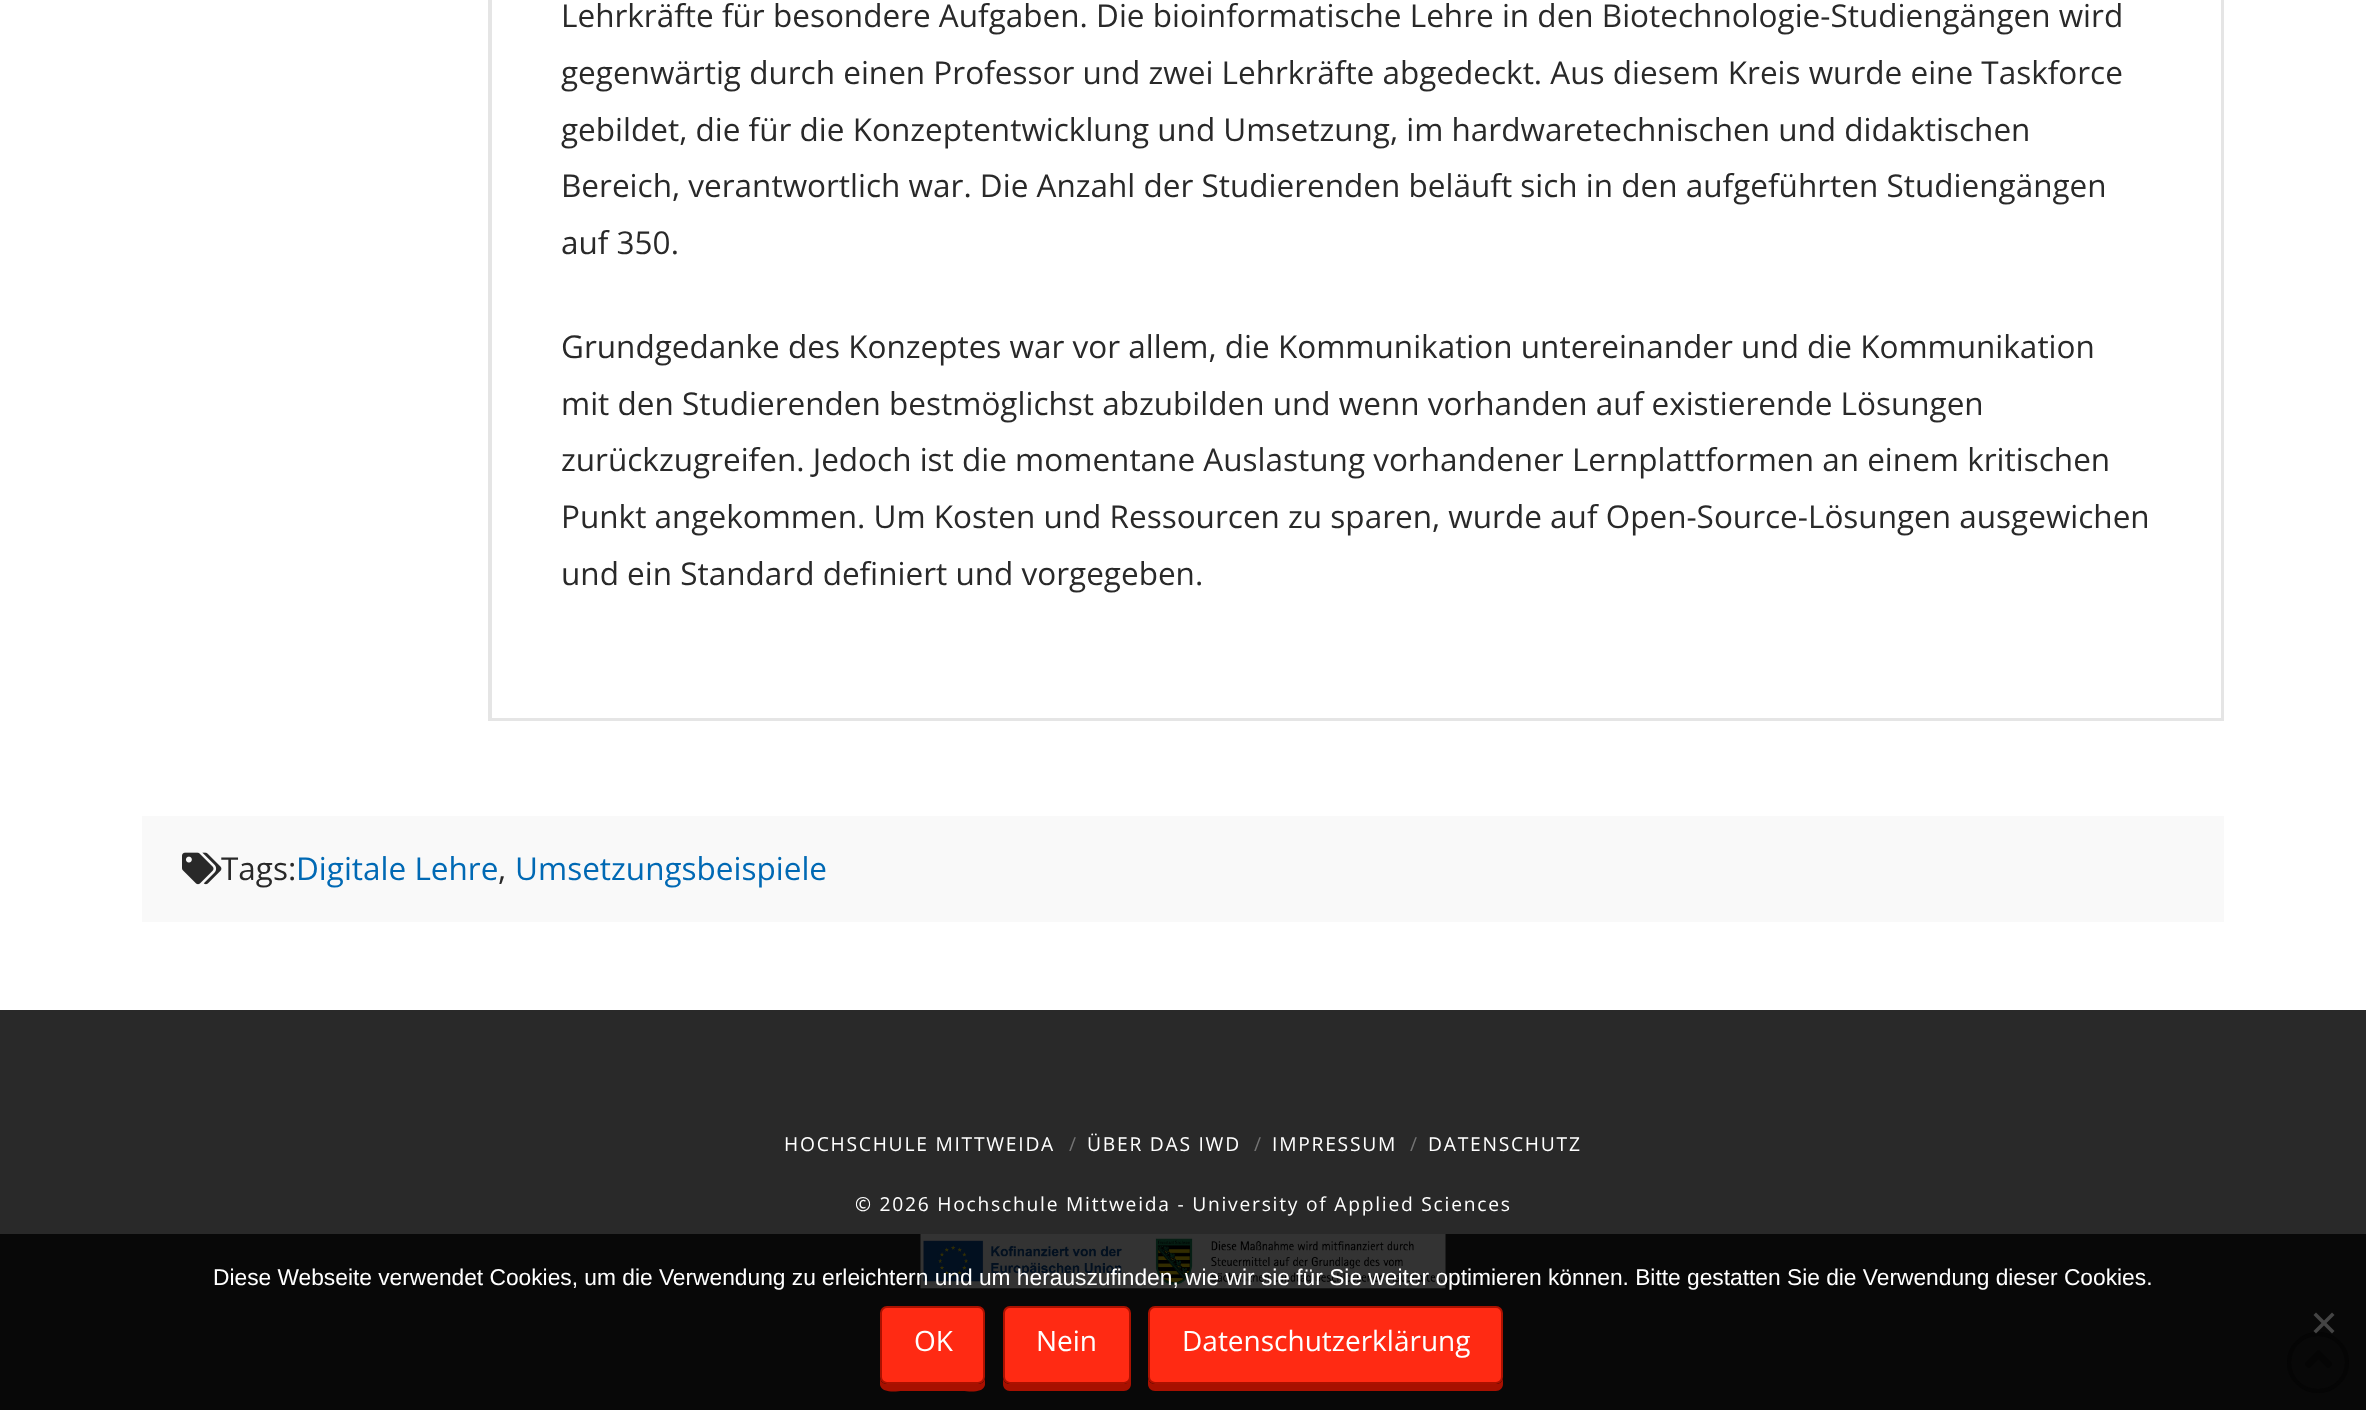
<svg xmlns="http://www.w3.org/2000/svg" width="2366" height="1410">
	<rect width="100%" height="100%" fill="#FFFFFF" />
	<rect x="490" y="-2" width="1732" height="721" fill="none" stroke="#E5E5E5" stroke-width="4" />
	<rect x="492" y="0" width="1729" height="718" fill="#FFFFFF" />
	<g font-family="Open Sans" font-size="31.5" fill="#292929">
		<text x="561" y="27">Lehrkräfte für besondere Aufgaben. Die bioinformatische Lehre in den Biotechnologie-Studiengängen wird</text>
		<text x="561" y="84">gegenwärtig durch einen Professor und zwei Lehrkräfte abgedeckt. Aus diesem Kreis wurde eine Taskforce</text>
		<text x="561" y="141">gebildet, die für die Konzeptentwicklung und Umsetzung, im hardwaretechnischen und didaktischen</text>
		<text x="561" y="197">Bereich, verantwortlich war. Die Anzahl der Studierenden beläuft sich in den aufgeführten Studiengängen</text>
		<text x="561" y="254">auf 350.</text>
		<text x="561" y="358">Grundgedanke des Konzeptes war vor allem, die Kommunikation untereinander und die Kommunikation</text>
		<text x="561" y="415">mit den Studierenden bestmöglichst abzubilden und wenn vorhanden auf existierende Lösungen</text>
		<text x="561" y="471">zurückzugreifen. Jedoch ist die momentane Auslastung vorhandener Lernplattformen an einem kritischen</text>
		<text x="561" y="528">Punkt angekommen. Um Kosten und Ressourcen zu sparen, wurde auf Open-Source-Lösungen ausgewichen</text>
		<text x="561" y="585">und ein Standard definiert und vorgegeben.</text>
	</g>
	<rect x="142" y="816" width="2082" height="106" fill="#F9F9F9" />
	<image x="182" y="852" width="40" height="33" href="assets/img1.png" />
	<text x="221" y="880" font-family="Open Sans" font-size="31.5" fill="#292929">Tags:</text>
	<text x="296" y="880" font-family="Open Sans" font-size="31.5" fill="#0069B4">Digitale Lehre</text>
	<text x="498" y="880" font-family="Open Sans" font-size="31.5" fill="#292929">,</text>
	<text x="515" y="880" font-family="Open Sans" font-size="31.5" fill="#0069B4">Umsetzungsbeispiele</text>
	<rect x="0" y="1010" width="2366" height="224" fill="#292929" />
	<rect x="0" y="1234" width="2366" height="176" fill="#080808" />
	<text x="784" y="1151" font-family="Open Sans" font-size="19.25" letter-spacing="1.75" fill="#FFFFFF">HOCHSCHULE MITTWEIDA</text>
	<text x="1069" y="1151" font-family="Open Sans" font-size="19.25" fill="#747474">/</text>
	<text x="1087" y="1151" font-family="Open Sans" font-size="19.25" letter-spacing="1.75" fill="#FFFFFF">ÜBER DAS IWD</text>
	<text x="1254" y="1151" font-family="Open Sans" font-size="19.25" fill="#747474">/</text>
	<text x="1272" y="1151" font-family="Open Sans" font-size="19.25" letter-spacing="1.75" fill="#FFFFFF">IMPRESSUM</text>
	<text x="1410" y="1151" font-family="Open Sans" font-size="19.25" fill="#747474">/</text>
	<g font-family="Open Sans" font-size="19.25" letter-spacing="1.75" fill="#FFFFFF">
		<text x="1428" y="1151">DATENSCHUTZ</text>
		<text x="855" y="1211">© 2026 Hochschule Mittweida - University of Applied Sciences</text>
	</g>
	<image x="920" y="1234" width="526" height="55" href="assets/img2.png" />
	<rect x="2289" y="1334" width="58" height="57" rx="28.5" fill="none" stroke="#050505" stroke-width="4" />
	<image x="2305" y="1350" width="27" height="18" href="assets/img3.png" />
	<text x="213" y="1285" font-family="Liberation Sans" font-size="22.75" fill="#FFFFFF">Diese Webseite verwendet Cookies, um die Verwendung zu erleichtern und um herauszufinden, wie wir sie für Sie weiter optimieren können. Bitte gestatten Sie die Verwendung dieser Cookies.</text>
	<path d="M2332 1312.5L2334.5 1315L2316 1333.5L2313.5 1331Z" fill="#808080" fill-opacity="0.5" />
	<path d="M2313.5 1315L2316 1312.5L2334.5 1331L2332 1333.5Z" fill="#444444" />
	<path d="M880 1318V1385C882 1394 898 1391 902 1391H963C967 1391 983 1394 985 1385V1379C984 1382 981 1384 978 1384H887C883 1384 880 1381 880 1377Z" fill="#A71000" />
	<rect x="881" y="1307" width="103" height="76" rx="6" fill="#FF2A13" stroke="#AC1100" stroke-width="2" />
	<text x="914" y="1351" font-family="Open Sans" font-size="28" fill="#FFFFFF">OK</text>
	<path d="M1003 1379V1384C1003 1388 1006 1391 1010 1391H1124C1128 1391 1131 1388 1131 1384V1320L1130 1317V1377C1130 1381 1127 1384 1124 1384H1010C1007 1384 1004 1382 1003 1379Z" fill="#A71000" />
	<rect x="1004" y="1307" width="126" height="76" rx="6" fill="#FF2A13" stroke="#AC1100" stroke-width="2" />
	<text x="1036" y="1351" font-family="Open Sans" font-size="28" fill="#FFFFFF">Nein</text>
	<path d="M1148 1377V1384C1148 1388 1151 1391 1155 1391H1496C1500 1391 1503 1388 1503 1384V1379C1502 1382 1499 1384 1496 1384H1155C1151 1384 1148 1381 1148 1377Z" fill="#A71000" />
	<rect x="1149" y="1307" width="353" height="76" rx="6" fill="#FF2A13" stroke="#AC1100" stroke-width="2" />
	<text x="1182" y="1351" font-family="Open Sans" font-size="28" fill="#FFFFFF">Datenschutzerklärung</text>
</svg>
